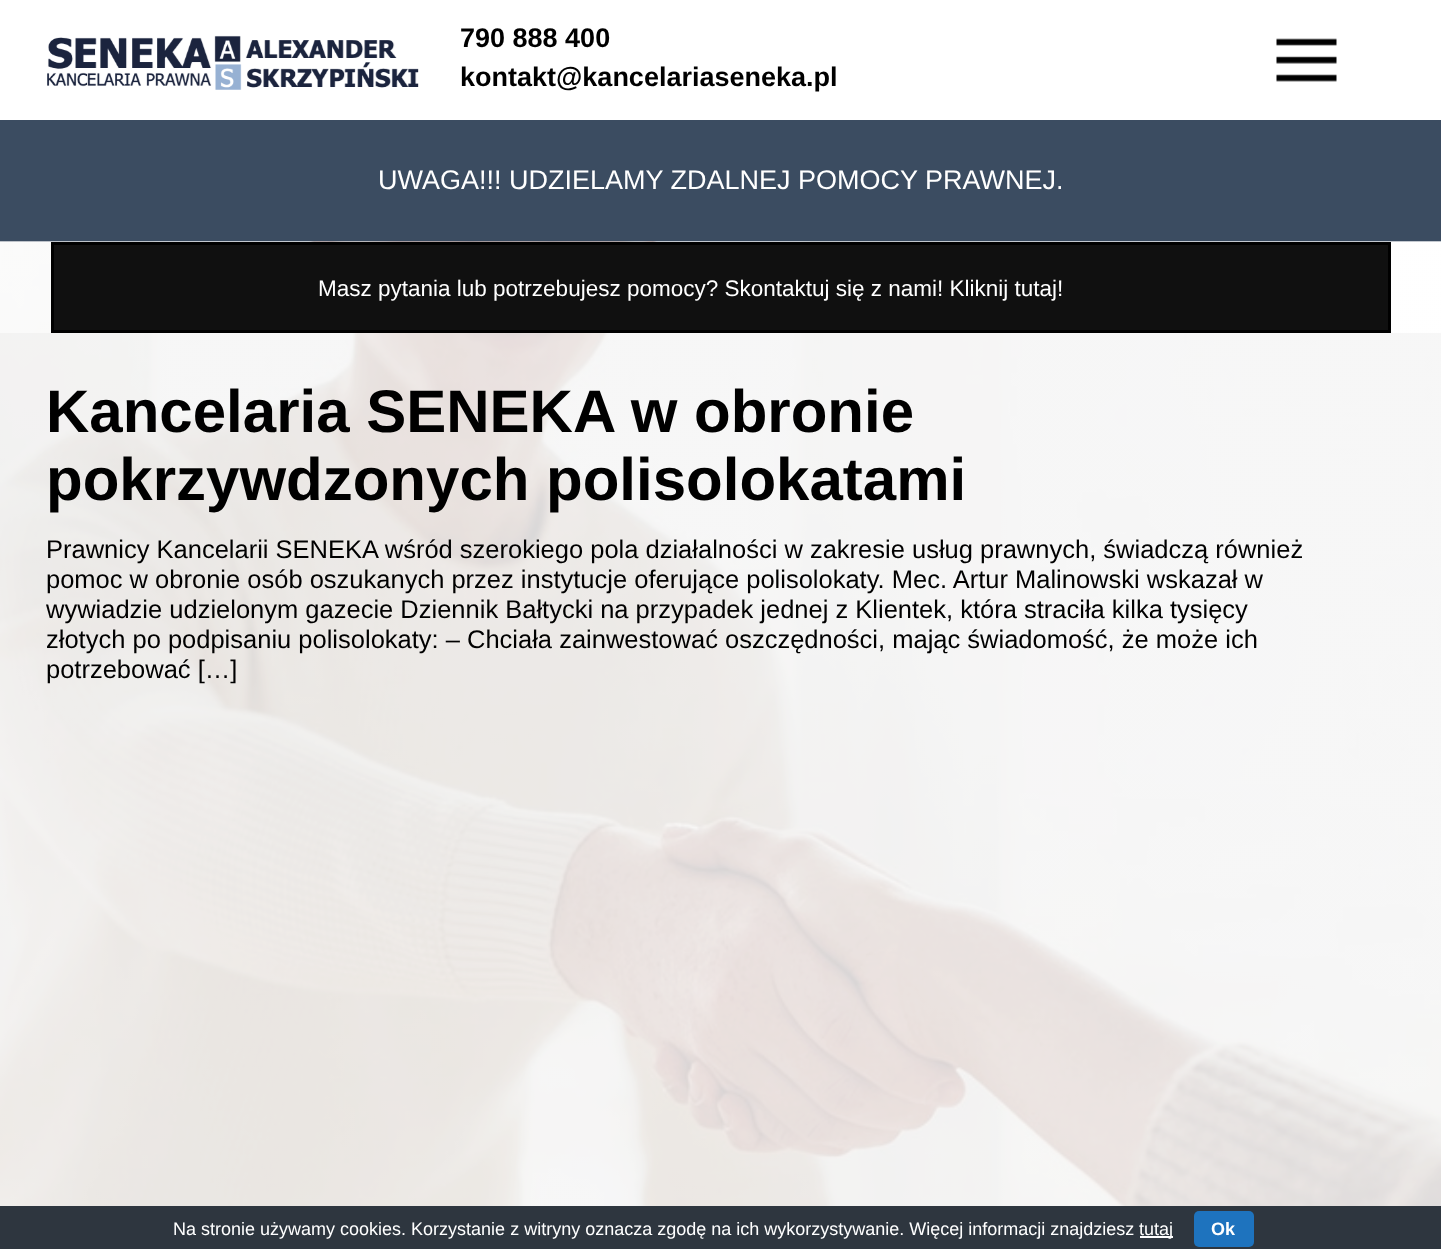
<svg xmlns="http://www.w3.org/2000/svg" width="1441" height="1249">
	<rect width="100%" height="100%" fill="#FFFFFF" />
	<image x="47" y="35" width="372" height="55" href="assets/img1.png" />
	<g font-family="Liberation Sans" font-size="27" font-weight="700" fill="#000000">
		<text x="460" y="47">790 888 400</text>
		<text x="460" y="86">kontakt@kancelariaseneka.pl</text>
	</g>
	<image x="1276" y="38" width="61" height="44" href="assets/img2.png" />
	<rect x="0" y="120" width="1441" height="122" fill="#3B4C61" />
	<text x="378" y="189" font-family="Liberation Sans" font-size="27" fill="#FFFFFF">UWAGA!!! UDZIELAMY ZDALNEJ POMOCY PRAWNEJ.</text>
	<image x="0" y="241" width="1441" height="965" href="assets/img3.png" />
	<rect x="52.5" y="243.5" width="1337" height="88" fill="#101010" stroke="#000000" stroke-width="3" />
	<text x="318" y="296" font-family="Liberation Sans" font-size="22.5" fill="#FFFFFF">Masz pytania lub potrzebujesz pomocy? Skontaktuj się z nami! Kliknij tutaj!</text>
	<g font-family="Liberation Sans" font-size="60" font-weight="700" fill="#000000">
		<text x="46" y="432">Kancelaria SENEKA w obronie</text>
		<text x="46" y="500">pokrzywdzonych polisolokatami</text>
	</g>
	<g font-family="Liberation Sans" font-size="25.5" fill="#000000">
		<text x="46" y="558">Prawnicy Kancelarii SENEKA wśród szerokiego pola działalności w zakresie usług prawnych, świadczą również</text>
		<text x="46" y="588">pomoc w obronie osób oszukanych przez instytucje oferujące polisolokaty. Mec. Artur Malinowski wskazał w</text>
		<text x="46" y="618">wywiadzie udzielonym gazecie Dziennik Bałtycki na przypadek jednej z Klientek, która straciła kilka tysięcy</text>
		<text x="46" y="648">złotych po podpisaniu polisolokaty: – Chciała zainwestować oszczędności, mając świadomość, że może ich</text>
		<text x="46" y="678">potrzebować […]</text>
	</g>
	<rect x="0" y="1206" width="1441" height="43" fill="#2E363F" />
	<text x="173" y="1235" font-family="Liberation Sans" font-size="18" fill="#FFFFFF">Na stronie używamy cookies. Korzystanie z witryny oznacza zgodę na ich wykorzystywanie. Więcej informacji znajdziesz</text>
	<rect x="1140" y="1236" width="33" height="2" fill="#FFFFFF" />
	<text x="1139" y="1235" font-family="Liberation Sans" font-size="18" fill="#FFFFFF">tutaj</text>
	<rect x="1194" y="1211" width="60" height="36" rx="5" fill="#1E73BE" />
	<text x="1211" y="1235" font-family="Liberation Sans" font-size="18" font-weight="700" fill="#FFFFFF">Ok</text>
</svg>
